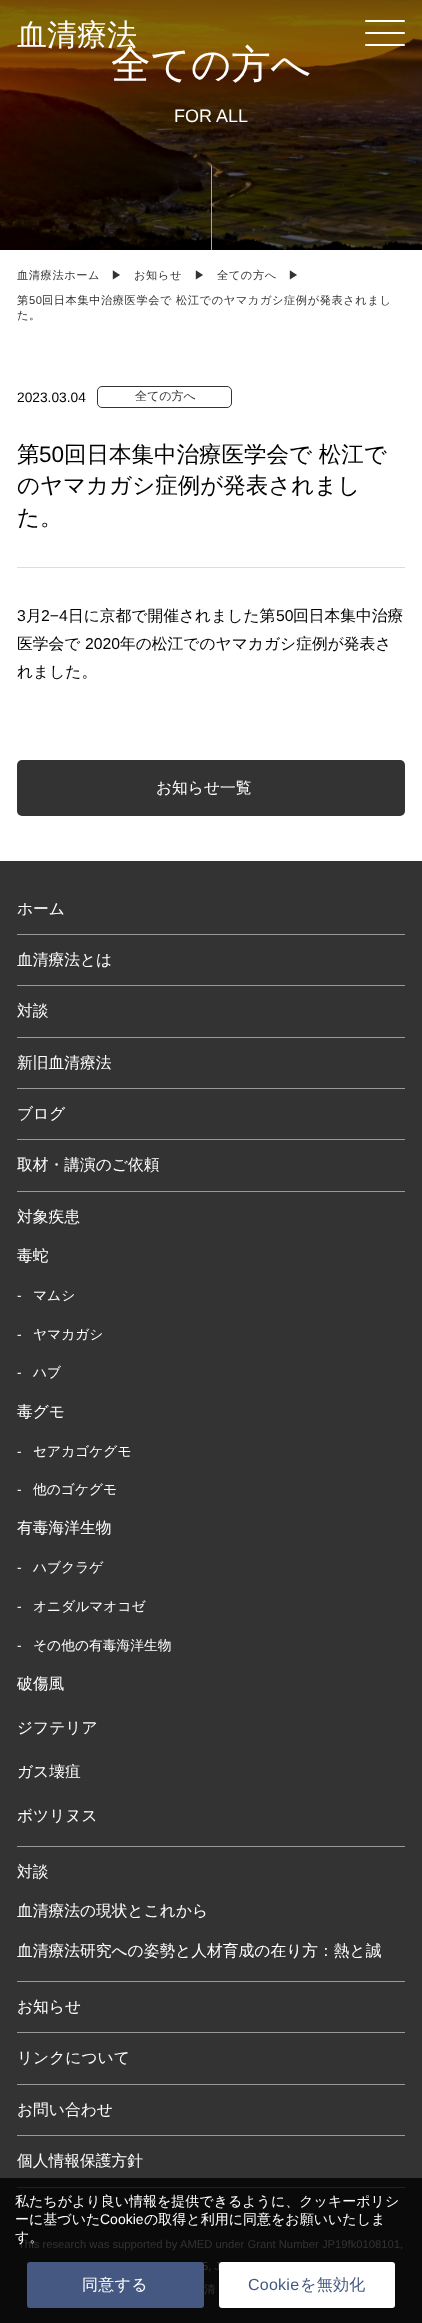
<svg xmlns="http://www.w3.org/2000/svg" width="422" height="2323">
	<rect width="100%" height="100%" fill="#FFFFFF" />
	<image x="0" y="0" width="422" height="250" href="assets/img1.png" />
	<text x="17" y="45" font-family="WenQuanYi Zen Hei" font-size="30" font-weight="500" fill="#FFFFFF">血清療法</text>
	<rect x="365" y="20" width="40" height="2" rx="1" fill="#FFFFFF" />
	<rect x="365" y="32" width="40" height="2" rx="1" fill="#FFFFFF" />
	<rect x="365" y="44" width="40" height="2" rx="1" fill="#FFFFFF" />
	<text x="111" y="78" font-family="WenQuanYi Zen Hei" font-size="39.5" font-weight="500" fill="#FFFFFF">全ての方へ</text>
	<text x="174" y="122" font-family="Liberation Sans" font-size="18" fill="#FFFFFF">FOR ALL</text>
	<g font-family="WenQuanYi Zen Hei" font-size="11.25" font-weight="500" letter-spacing="0.55" fill="#333333">
		<text x="17" y="279">血清療法ホーム</text>
		<text x="111" y="279">▶︎</text>
		<text x="134" y="279">お知らせ</text>
		<text x="194" y="279">▶︎</text>
		<text x="217" y="279">全ての方へ</text>
		<text x="288" y="279">▶︎</text>
		<text x="17" y="304">第</text>
	</g>
	<text x="29" y="304" font-family="Liberation Sans" font-size="11.25" letter-spacing="0.55" fill="#333333">50</text>
	<g font-family="WenQuanYi Zen Hei" font-size="11.25" font-weight="500" letter-spacing="0.55" fill="#333333">
		<text x="42" y="304">回日本集中治療医学会で 松江でのヤマカガシ症例が発表されまし</text>
		<text x="17" y="319">た。</text>
	</g>
	<text x="17" y="402" font-family="Liberation Sans" font-size="13.75" fill="#000000">2023.03.04</text>
	<rect x="97.5" y="386.5" width="134" height="21" rx="4.5" fill="none" stroke="#333333" />
	<text x="135" y="400" font-family="WenQuanYi Zen Hei" font-size="12" font-weight="500" fill="#333333">全ての方へ</text>
	<rect x="17" y="567" width="388" height="1" fill="#DDDDDD" />
	<text x="17" y="462" font-family="WenQuanYi Zen Hei" font-size="22.5" font-weight="500" fill="#000000">第</text>
	<text x="39" y="462" font-family="Liberation Sans" font-size="22.5" fill="#000000">50</text>
	<g font-family="WenQuanYi Zen Hei" font-size="22.5" font-weight="500" fill="#000000">
		<text x="64" y="462">回日本集中治療医学会で 松江で</text>
		<text x="17" y="493">のヤマカガシ症例が発表されまし</text>
		<text x="17" y="525">た。</text>
	</g>
	<text x="17" y="621" font-family="Liberation Sans" font-size="15.75" fill="#000000">3</text>
	<text x="26" y="621" font-family="WenQuanYi Zen Hei" font-size="15.75" font-weight="500" fill="#000000">月</text>
	<text x="41" y="621" font-family="Liberation Sans" font-size="15.75" fill="#000000">2−4</text>
	<text x="68" y="621" font-family="WenQuanYi Zen Hei" font-size="15.75" font-weight="500" fill="#000000">日に京都で開催されました第</text>
	<text x="276" y="621" font-family="Liberation Sans" font-size="15.75" fill="#000000">50</text>
	<g font-family="WenQuanYi Zen Hei" font-size="15.75" font-weight="500" fill="#000000">
		<text x="293" y="621">回日本集中治療</text>
		<text x="17" y="649">医学会で</text>
	</g>
	<text x="85" y="649" font-family="Liberation Sans" font-size="15.75" fill="#000000">2020</text>
	<g font-family="WenQuanYi Zen Hei" font-size="15.75" font-weight="500" fill="#000000">
		<text x="120" y="649">年の松江でのヤマカガシ症例が発表さ</text>
		<text x="17" y="677">れました。</text>
	</g>
	<rect x="17" y="760" width="388" height="56" rx="5" fill="#333333" />
	<text x="156" y="793" font-family="WenQuanYi Zen Hei" font-size="15.75" font-weight="500" fill="#FFFFFF">お知らせ一覧</text>
	<rect x="0" y="861" width="422" height="1317" fill="#333333" />
	<rect x="0" y="2178" width="422" height="145" fill="#0A0A0A" />
	<rect x="17" y="934" width="388" height="1" fill="#999999" />
	<text x="17" y="914" font-family="WenQuanYi Zen Hei" font-size="15.75" font-weight="500" fill="#FFFFFF">ホーム</text>
	<rect x="17" y="985" width="388" height="1" fill="#999999" />
	<text x="17" y="965" font-family="WenQuanYi Zen Hei" font-size="15.75" font-weight="500" fill="#FFFFFF">血清療法とは</text>
	<rect x="17" y="1037" width="388" height="1" fill="#999999" />
	<text x="17" y="1016" font-family="WenQuanYi Zen Hei" font-size="15.75" font-weight="500" fill="#FFFFFF">対談</text>
	<rect x="17" y="1088" width="388" height="1" fill="#999999" />
	<text x="17" y="1068" font-family="WenQuanYi Zen Hei" font-size="15.75" font-weight="500" fill="#FFFFFF">新旧血清療法</text>
	<rect x="17" y="1139" width="388" height="1" fill="#999999" />
	<text x="17" y="1119" font-family="WenQuanYi Zen Hei" font-size="15.75" font-weight="500" fill="#FFFFFF">ブログ</text>
	<rect x="17" y="1191" width="388" height="1" fill="#999999" />
	<text x="17" y="1170" font-family="WenQuanYi Zen Hei" font-size="15.75" font-weight="500" fill="#FFFFFF">取材・講演のご依頼</text>
	<rect x="17" y="1846" width="388" height="1" fill="#999999" />
	<g font-family="WenQuanYi Zen Hei" font-size="15.75" font-weight="500" fill="#FFFFFF">
		<text x="17" y="1222">対象疾患</text>
		<text x="17" y="1261">毒蛇</text>
	</g>
	<text x="17" y="1300" font-family="Liberation Sans" font-size="13.75" fill="#FFFFFF">-</text>
	<text x="33" y="1300" font-family="WenQuanYi Zen Hei" font-size="13.75" font-weight="500" fill="#FFFFFF">マムシ</text>
	<text x="17" y="1339" font-family="Liberation Sans" font-size="13.75" fill="#FFFFFF">-</text>
	<text x="33" y="1339" font-family="WenQuanYi Zen Hei" font-size="13.75" font-weight="500" fill="#FFFFFF">ヤマカガシ</text>
	<text x="17" y="1377" font-family="Liberation Sans" font-size="13.75" fill="#FFFFFF">-</text>
	<text x="33" y="1377" font-family="WenQuanYi Zen Hei" font-size="13.75" font-weight="500" fill="#FFFFFF">ハブ</text>
	<text x="17" y="1417" font-family="WenQuanYi Zen Hei" font-size="15.75" font-weight="500" fill="#FFFFFF">毒グモ</text>
	<text x="17" y="1456" font-family="Liberation Sans" font-size="13.75" fill="#FFFFFF">-</text>
	<text x="33" y="1456" font-family="WenQuanYi Zen Hei" font-size="13.75" font-weight="500" fill="#FFFFFF">セアカゴケグモ</text>
	<text x="17" y="1494" font-family="Liberation Sans" font-size="13.75" fill="#FFFFFF">-</text>
	<text x="33" y="1494" font-family="WenQuanYi Zen Hei" font-size="13.75" font-weight="500" fill="#FFFFFF">他のゴケグモ</text>
	<text x="17" y="1533" font-family="WenQuanYi Zen Hei" font-size="15.75" font-weight="500" fill="#FFFFFF">有毒海洋生物</text>
	<text x="17" y="1572" font-family="Liberation Sans" font-size="13.75" fill="#FFFFFF">-</text>
	<text x="33" y="1572" font-family="WenQuanYi Zen Hei" font-size="13.75" font-weight="500" fill="#FFFFFF">ハブクラゲ</text>
	<text x="17" y="1611" font-family="Liberation Sans" font-size="13.75" fill="#FFFFFF">-</text>
	<text x="33" y="1611" font-family="WenQuanYi Zen Hei" font-size="13.75" font-weight="500" fill="#FFFFFF">オニダルマオコゼ</text>
	<text x="17" y="1650" font-family="Liberation Sans" font-size="13.75" fill="#FFFFFF">-</text>
	<text x="33" y="1650" font-family="WenQuanYi Zen Hei" font-size="13.75" font-weight="500" fill="#FFFFFF">その他の有毒海洋生物</text>
	<g font-family="WenQuanYi Zen Hei" font-size="15.75" font-weight="500" fill="#FFFFFF">
		<text x="17" y="1689">破傷風</text>
		<text x="17" y="1733">ジフテリア</text>
		<text x="17" y="1777">ガス壊疽</text>
		<text x="17" y="1821">ボツリヌス</text>
	</g>
	<rect x="17" y="1981" width="388" height="1" fill="#999999" />
	<g font-family="WenQuanYi Zen Hei" font-size="15.75" font-weight="500" fill="#FFFFFF">
		<text x="17" y="1877">対談</text>
		<text x="17" y="1916">血清療法の現状とこれから</text>
		<text x="17" y="1956">血清療法研究への姿勢と人材育成の在り方：熱と誠</text>
	</g>
	<rect x="17" y="2032" width="388" height="1" fill="#999999" />
	<text x="17" y="2012" font-family="WenQuanYi Zen Hei" font-size="15.75" font-weight="500" fill="#FFFFFF">お知らせ</text>
	<rect x="17" y="2084" width="388" height="1" fill="#999999" />
	<text x="17" y="2063" font-family="WenQuanYi Zen Hei" font-size="15.75" font-weight="500" fill="#FFFFFF">リンクについて</text>
	<rect x="17" y="2135" width="388" height="1" fill="#999999" />
	<text x="17" y="2115" font-family="WenQuanYi Zen Hei" font-size="15.75" font-weight="500" fill="#FFFFFF">お問い合わせ</text>
	<rect x="17" y="2187" width="388" height="1" fill="#1F1F1F" />
	<text x="17" y="2166" font-family="WenQuanYi Zen Hei" font-size="15.75" font-weight="500" fill="#FFFFFF">個人情報保護方針</text>
	<g font-family="Liberation Sans" font-size="11.25" fill="#333333">
		<text x="18" y="2248">This research was supported by AMED under Grant Number JP19fk0108101,</text>
		<text x="202" y="2270">5, J</text>
	</g>
	<text x="204" y="2293" font-family="WenQuanYi Zen Hei" font-size="11.25" font-weight="500" fill="#333333">清</text>
	<g font-family="WenQuanYi Zen Hei" font-size="14" font-weight="500" fill="#FFFFFF">
		<text x="15" y="2206">私たちがより良い情報を提供できるように、クッキーポリシ</text>
		<text x="15" y="2224">ーに基づいた</text>
	</g>
	<text x="100" y="2224" font-family="Liberation Sans" font-size="14" fill="#FFFFFF">Cookie</text>
	<g font-family="WenQuanYi Zen Hei" font-size="14" font-weight="500" fill="#FFFFFF">
		<text x="144" y="2224">の取得と利用に同意をお願いいたしま</text>
		<text x="15" y="2242">す。</text>
	</g>
	<rect x="27" y="2262" width="177" height="46" rx="3" fill="#455882" />
	<text x="82" y="2290" font-family="WenQuanYi Zen Hei" font-size="16" font-weight="500" letter-spacing="0.25" fill="#FFFFFF">同意する</text>
	<rect x="219" y="2262" width="176" height="46" rx="3" fill="#FFFFFF" />
	<text x="248" y="2290" font-family="Liberation Sans" font-size="16" letter-spacing="0.25" fill="#455882">Cookie</text>
	<text x="300" y="2290" font-family="WenQuanYi Zen Hei" font-size="16" font-weight="500" letter-spacing="0.25" fill="#455882">を無効化</text>
</svg>
